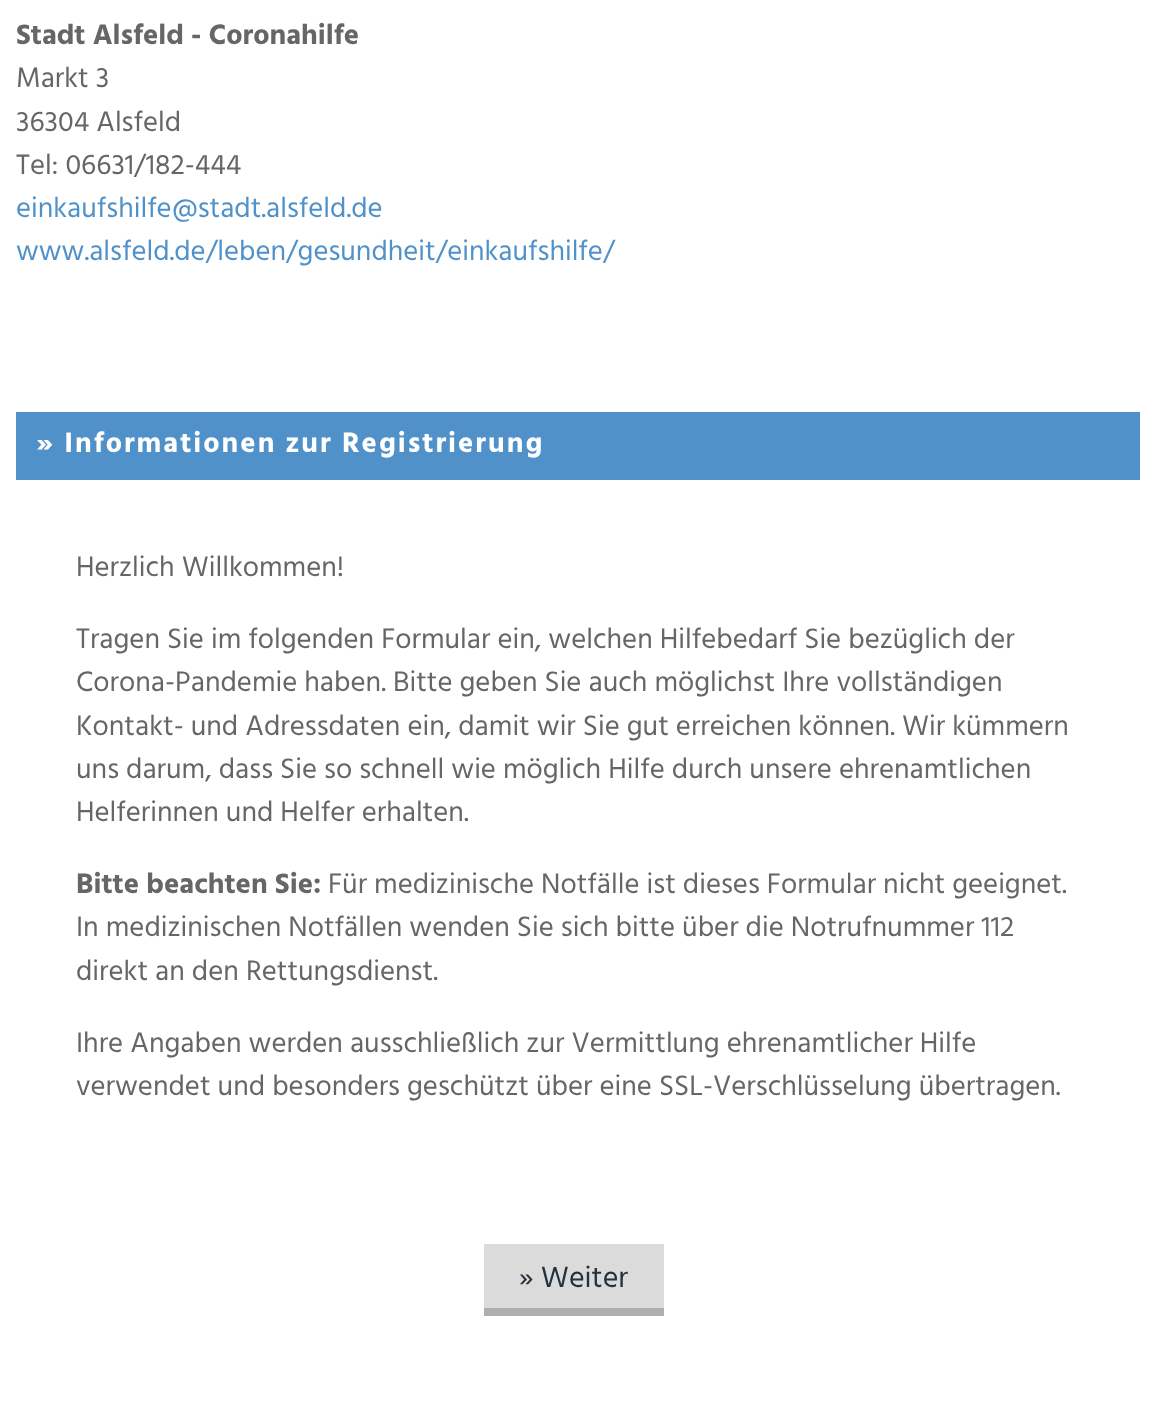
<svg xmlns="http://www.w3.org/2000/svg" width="1156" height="1422">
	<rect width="100%" height="100%" fill="#FFFFFF" />
	<text x="16" y="44" font-family="Hind" font-size="28.8" font-weight="700" fill="#666666">Stadt Alsfeld - Coronahilfe</text>
	<g font-family="Hind" font-size="28.8" fill="#666666">
		<text x="16" y="87">Markt 3</text>
		<text x="16" y="131">36304 Alsfeld</text>
		<text x="16" y="174">Tel: 06631/182-444</text>
	</g>
	<g font-family="Hind" font-size="28.8" fill="#5191CA">
		<text x="16" y="217">einkaufshilfe@stadt.alsfeld.de</text>
		<text x="16" y="260">www.alsfeld.de/leben/gesundheit/einkaufshilfe/</text>
	</g>
	<rect x="16" y="412" width="1124" height="68" fill="#5191CA" />
	<text x="36" y="452" font-family="Hind" font-size="28.8" font-weight="700" letter-spacing="2" fill="#FFFFFF">» Informationen zur Registrierung</text>
	<g font-family="Hind" font-size="28.85" fill="#666666">
		<text x="76" y="576">Herzlich Willkommen!</text>
		<text x="76" y="648">Tragen Sie im folgenden Formular ein, welchen Hilfebedarf Sie bezüglich der</text>
		<text x="76" y="691">Corona-Pandemie haben. Bitte geben Sie auch möglichst Ihre vollständigen</text>
		<text x="76" y="735">Kontakt- und Adressdaten ein, damit wir Sie gut erreichen können. Wir kümmern</text>
		<text x="76" y="778">uns darum, dass Sie so schnell wie möglich Hilfe durch unsere ehrenamtlichen</text>
		<text x="76" y="821">Helferinnen und Helfer erhalten.</text>
	</g>
	<text x="76" y="893" font-family="Hind" font-size="28.85" font-weight="700" fill="#666666">Bitte beachten Sie:</text>
	<g font-family="Hind" font-size="28.85" fill="#666666">
		<text x="328" y="893">Für medizinische Notfälle ist dieses Formular nicht geeignet.</text>
		<text x="76" y="936">In medizinischen Notfällen wenden Sie sich bitte über die Notrufnummer 112</text>
		<text x="76" y="980">direkt an den Rettungsdienst.</text>
		<text x="76" y="1052">Ihre Angaben werden ausschließlich zur Vermittlung ehrenamtlicher Hilfe</text>
		<text x="76" y="1095">verwendet und besonders geschützt über eine SSL-Verschlüsselung übertragen.</text>
	</g>
	<rect x="484" y="1244" width="180" height="64" fill="#DBDBDB" />
	<rect x="484" y="1308" width="180" height="8" fill="#AFAFAF" />
	<text x="519" y="1287" font-family="Hind" font-size="30" fill="#243140">» Weiter</text>
</svg>
